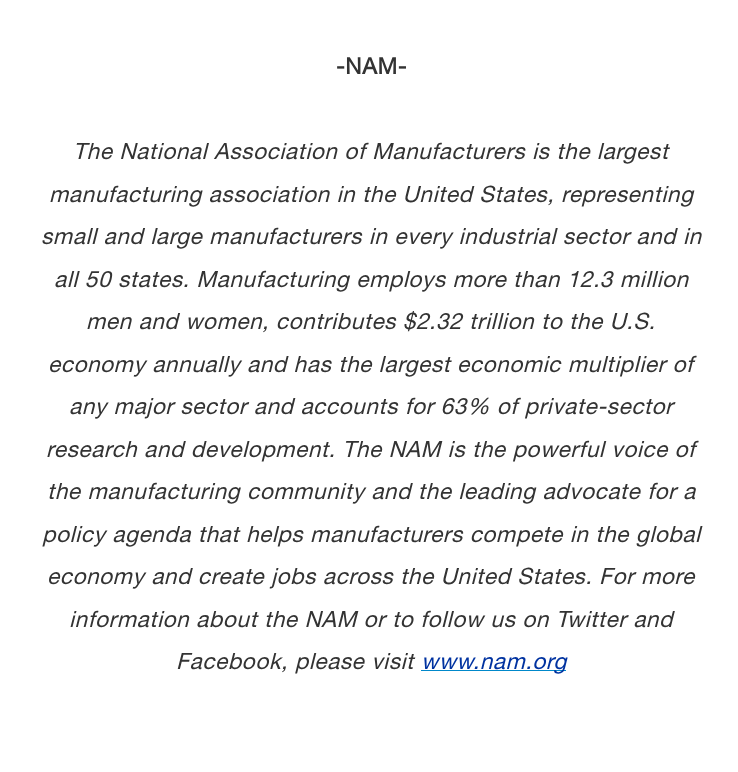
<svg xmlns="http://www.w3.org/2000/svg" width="738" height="772">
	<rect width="100%" height="100%" fill="#FFFFFF" />
	<text x="336" y="74" font-family="'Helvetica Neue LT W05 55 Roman'" font-size="22.5" font-weight="700" letter-spacing="0.62" fill="#333333">-NAM-</text>
	<g font-family="'Helvetica Neue LT W05 55 Roman'" font-size="22.5" font-style="italic" letter-spacing="0.62" fill="#333333">
		<text x="73" y="159">The National Association of Manufacturers is the largest</text>
		<text x="49" y="202">manufacturing association in the United States, representing</text>
		<text x="41" y="244">small and large manufacturers in every industrial sector and in</text>
		<text x="54" y="287">all 50 states. Manufacturing employs more than 12.3 million</text>
		<text x="86" y="329">men and women, contributes $2.32 trillion to the U.S.</text>
		<text x="48" y="372">economy annually and has the largest economic multiplier of</text>
		<text x="69" y="414">any major sector and accounts for 63% of private-sector</text>
		<text x="46" y="457">research and development. The NAM is the powerful voice of</text>
		<text x="47" y="499">the manufacturing community and the leading advocate for a</text>
		<text x="42" y="542">policy agenda that helps manufacturers compete in the global</text>
		<text x="47" y="584">economy and create jobs across the United States. For more</text>
		<text x="69" y="627">information about the NAM or to follow us on Twitter and</text>
		<text x="176" y="669">Facebook, please visit</text>
	</g>
	<rect x="421" y="670" width="145" height="1" fill="#0088CA" />
	<text x="421" y="669" font-family="'Helvetica Neue LT W05 55 Roman'" font-size="22.5" font-style="italic" letter-spacing="0.62" fill="#0032A0">www.nam.org</text>
</svg>
